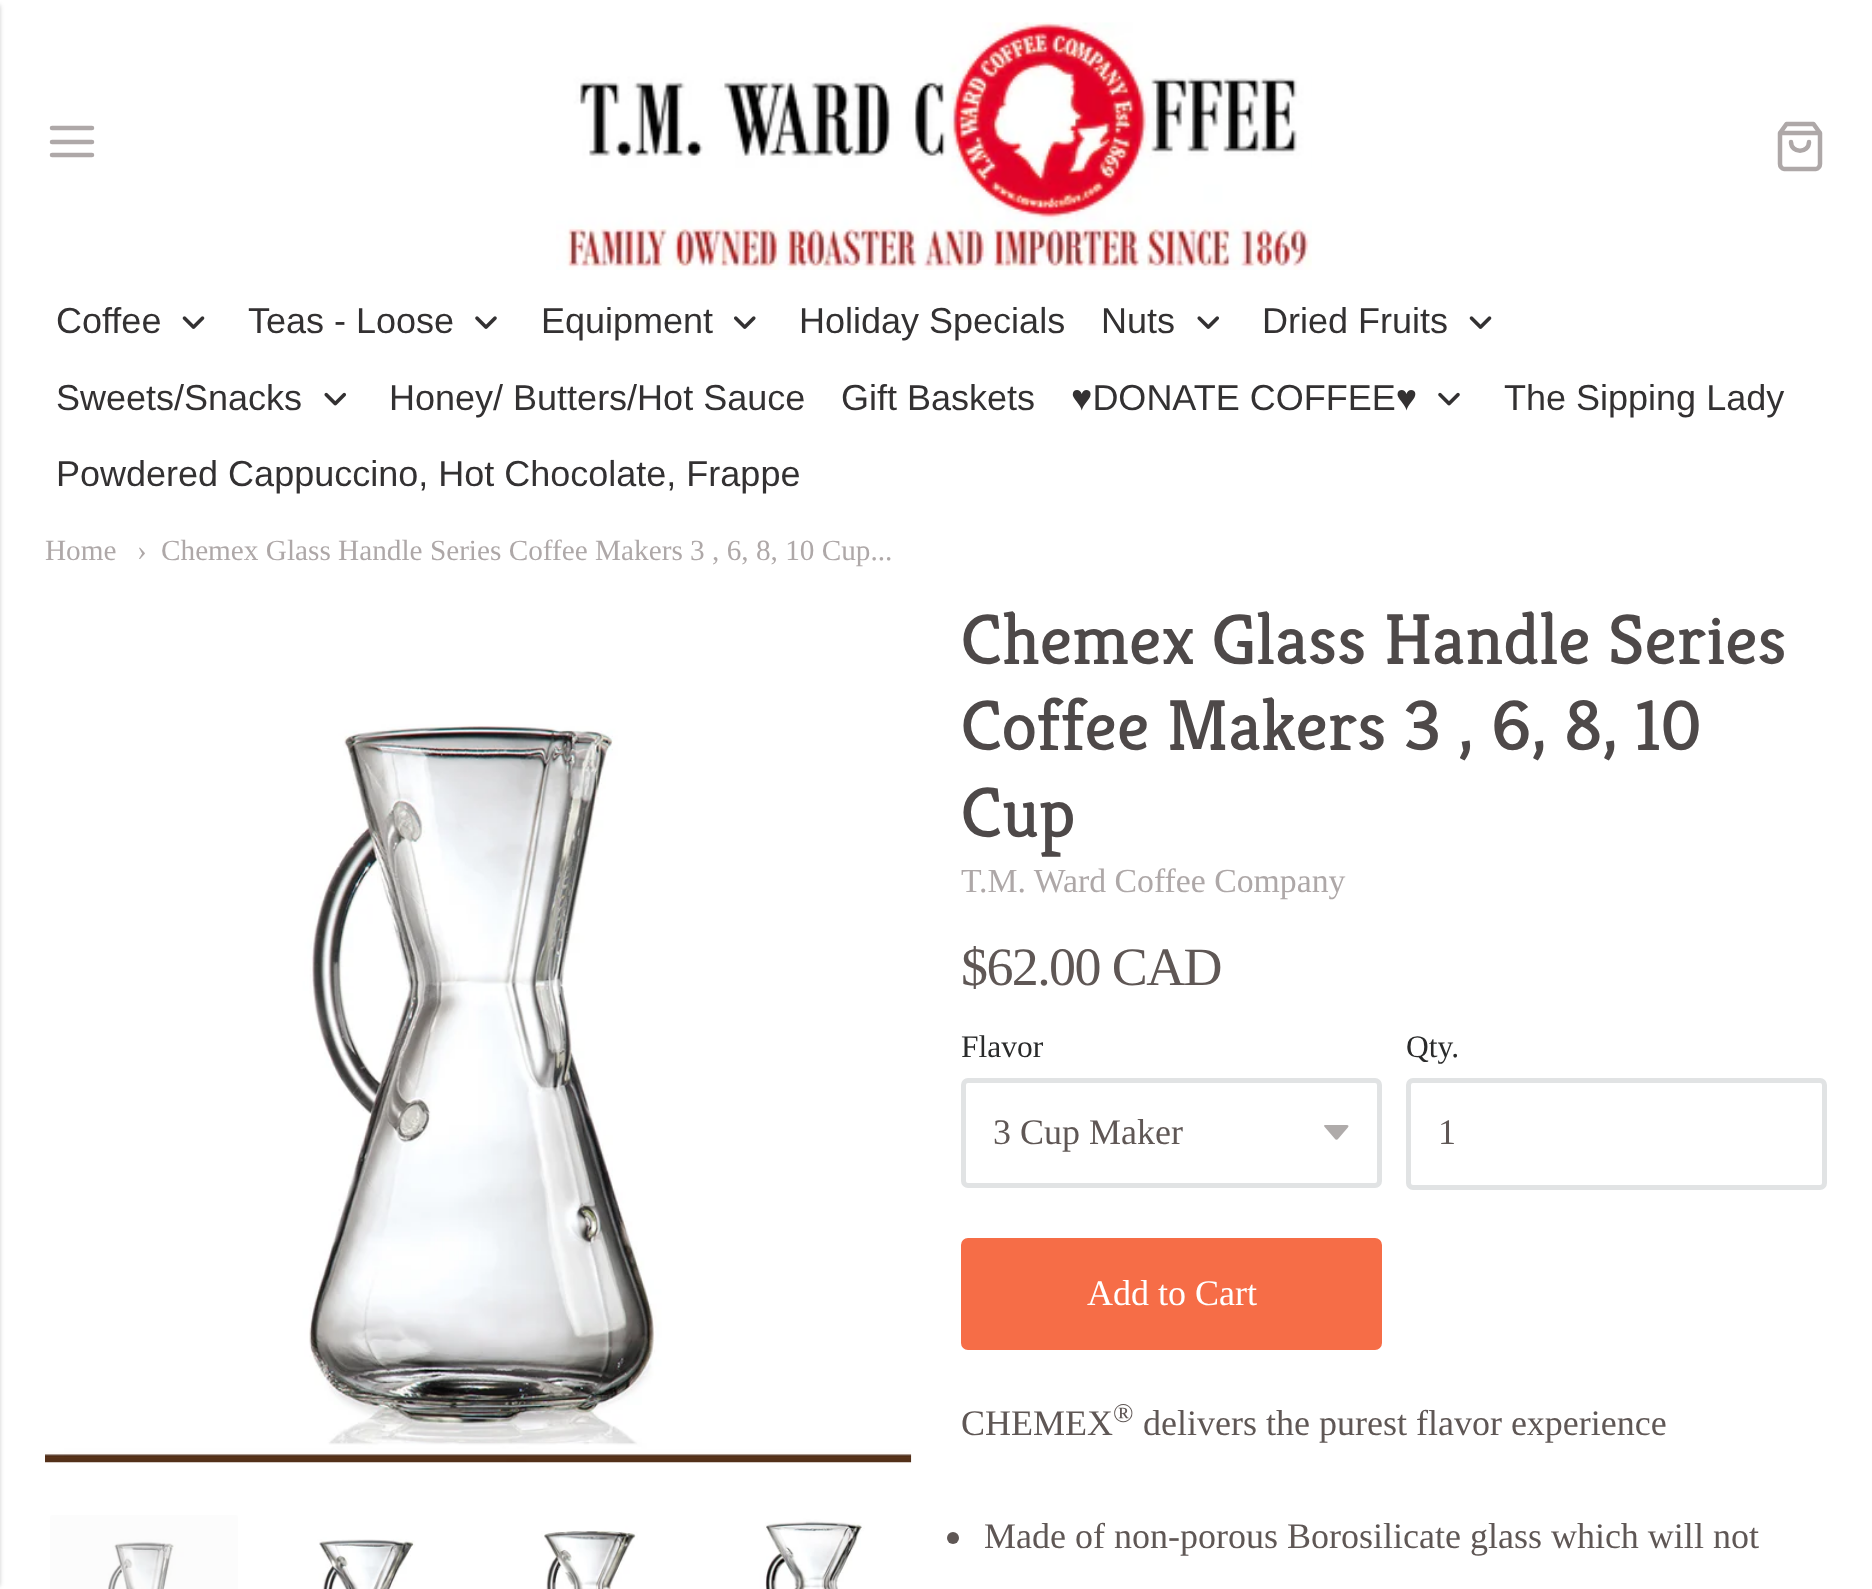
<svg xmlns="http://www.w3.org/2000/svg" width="1872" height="1589">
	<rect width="100%" height="100%" fill="#FFFFFF" />
	<rect x="-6" y="5" width="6" height="1581" fill="#000000" fill-opacity="0.2" filter="blur(2px)" />
	<path d="M52 142H92M52 128H92M52 155H92" fill="none" stroke="#AEA8A8" stroke-width="4.5" stroke-linecap="round" stroke-linejoin="round" />
	<image x="556" y="22" width="756" height="248" href="assets/img1.png" />
	<path d="M1786.5 124L1780 133V164C1780 166.5 1782 169 1784 169H1816C1818 169 1820 166.5 1820 164V133L1813.5 124ZM1780 133H1820M1809 142C1809 153.5 1791 153.5 1791 142" fill="none" stroke="#AEA8A8" stroke-width="4.5" stroke-linecap="round" stroke-linejoin="round" />
	<text x="56" y="333" font-family="Liberation Sans" font-size="36" fill="#333132">Coffee</text>
	<image x="182" y="316" width="23" height="13" href="assets/img2.png" />
	<text x="248" y="333" font-family="Liberation Sans" font-size="36" fill="#333132">Teas - Loose</text>
	<image x="475" y="316" width="22" height="13" href="assets/img3.png" />
	<text x="541" y="333" font-family="Liberation Sans" font-size="36" fill="#333132">Equipment</text>
	<image x="734" y="316" width="22" height="13" href="assets/img4.png" />
	<g font-family="Liberation Sans" font-size="36" fill="#333132">
		<text x="799" y="333">Holiday Specials</text>
		<text x="1101" y="333">Nuts</text>
	</g>
	<image x="1197" y="316" width="22" height="13" href="assets/img5.png" />
	<text x="1262" y="333" font-family="Liberation Sans" font-size="36" fill="#333132">Dried Fruits</text>
	<image x="1469" y="316" width="23" height="13" href="assets/img2.png" />
	<text x="56" y="410" font-family="Liberation Sans" font-size="36" fill="#333132">Sweets/Snacks</text>
	<image x="324" y="392" width="22" height="14" href="assets/img6.png" />
	<g font-family="Liberation Sans" font-size="36" fill="#333132">
		<text x="389" y="410">Honey/ Butters/Hot Sauce</text>
		<text x="841" y="410">Gift Baskets</text>
		<text x="1071" y="410">♥DONATE COFFEE♥</text>
	</g>
	<image x="1438" y="392" width="22" height="14" href="assets/img7.png" />
	<g font-family="Liberation Sans" font-size="36" fill="#333132">
		<text x="1504" y="410">The Sipping Lady</text>
		<text x="56" y="486">Powdered Cappuccino, Hot Chocolate, Frappe</text>
	</g>
	<g font-family="Liberation Serif" font-size="29.25" fill="#AEA8A8">
		<text x="45" y="560">Home</text>
		<text x="137" y="560">›</text>
		<text x="161" y="560">Chemex Glass Handle Series Coffee Makers 3 , 6, 8, 10 Cup...</text>
	</g>
	<image x="45" y="724" width="867" height="739" href="assets/img8.png" />
	<rect x="47.5" y="1512.5" width="193" height="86" rx="4.5" fill="#F7F8F8" stroke="#FFFFFF" stroke-width="5" />
	<image x="50" y="1515" width="188" height="74" href="assets/img9.png" />
	<image x="273" y="1515" width="188" height="74" href="assets/img10.png" />
	<image x="496" y="1515" width="188" height="74" href="assets/img11.png" />
	<image x="718" y="1515" width="188" height="74" href="assets/img12.png" />
	<g font-family="Kreon" font-size="72" fill="#4E4949">
		<text x="961" y="664">Chemex Glass Handle Series</text>
		<text x="961" y="750">Coffee Makers 3 , 6, 8, 10</text>
		<text x="961" y="837">Cup</text>
	</g>
	<text x="961" y="892" font-family="Liberation Serif" font-size="33.75" fill="#AEA8A8">T.M. Ward Coffee Company</text>
	<text x="961" y="985" font-family="Liberation Serif" font-size="54" letter-spacing="-1.6" fill="#5F5755">$62.00 CAD</text>
	<text x="961" y="1057" font-family="Liberation Serif" font-size="31.5" fill="#2A2B2B">Flavor</text>
	<image x="1324" y="1125" width="25" height="15" href="assets/img13.png" />
	<rect x="963.5" y="1080.5" width="416" height="105" rx="4.5" fill="none" stroke="#E1E3E4" stroke-width="5" />
	<text x="993" y="1144" font-family="Liberation Serif" font-size="36" fill="#5F5755">3 Cup Maker</text>
	<text x="1406" y="1057" font-family="Liberation Serif" font-size="31.5" fill="#2A2B2B">Qty.</text>
	<rect x="1408.5" y="1080.5" width="416" height="107" rx="4.5" fill="none" stroke="#E1E3E4" stroke-width="5" />
	<text x="1438" y="1144" font-family="Liberation Serif" font-size="36" fill="#5F5755">1</text>
	<rect x="963.5" y="1240.5" width="416" height="107" rx="4.5" fill="#F66D47" stroke="#F66D47" stroke-width="5" />
	<text x="1087" y="1305" font-family="Liberation Serif" font-size="36" fill="#FFFFFF">Add to Cart</text>
	<text x="961" y="1435" font-family="Liberation Serif" font-size="36" fill="#5F5755">CHEMEX</text>
	<text x="1113" y="1422" font-family="Liberation Serif" font-size="27" fill="#5F5755">®</text>
	<text x="1143" y="1435" font-family="Liberation Serif" font-size="36" fill="#5F5755">delivers the purest flavor experience</text>
	<circle cx="953" cy="1538" r="6" fill="#5F5755" />
	<text x="984" y="1548" font-family="Liberation Serif" font-size="36" fill="#5F5755">Made of non-porous Borosilicate glass which will not</text>
</svg>
